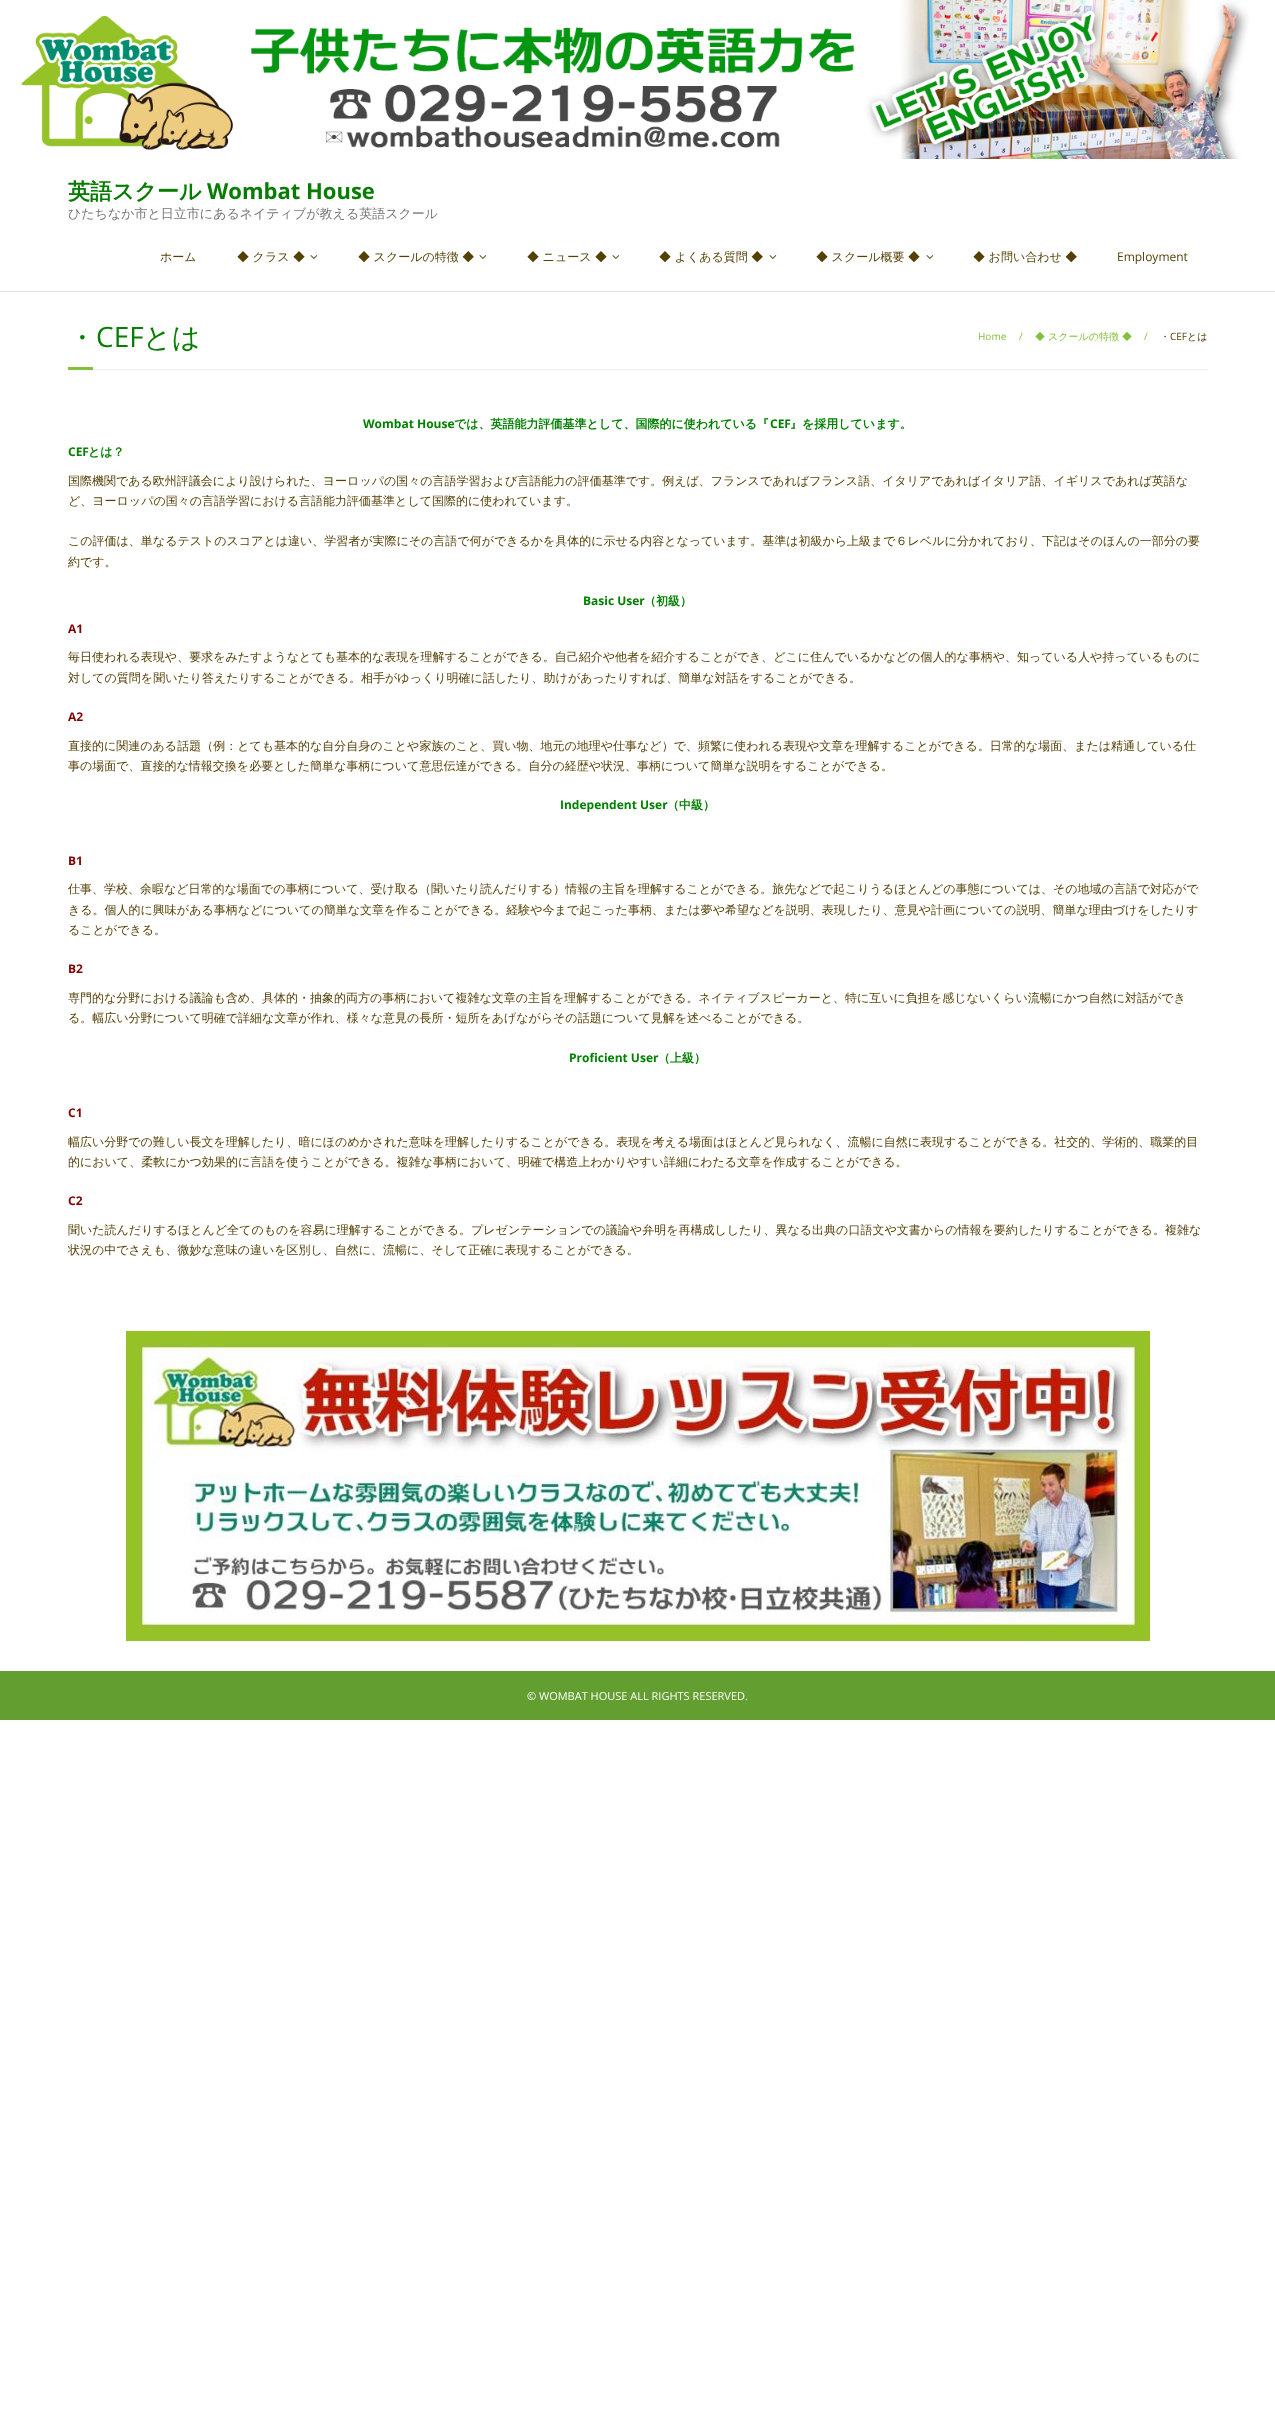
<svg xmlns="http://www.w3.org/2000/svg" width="1275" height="2412">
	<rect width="100%" height="100%" fill="#FFFFFF" />
	<image x="21" y="0" width="1228" height="159" href="assets/img1.png" />
	<rect x="0" y="291" width="1275" height="1" fill="#E0E0E0" />
	<text x="68" y="199" font-family="WenQuanYi Zen Hei" font-size="22" font-weight="700" fill="#067C00">英語スクール</text>
	<text x="207" y="199" font-family="Open Sans" font-size="22" font-weight="700" fill="#067C00">Wombat House</text>
	<text x="68" y="218" font-family="WenQuanYi Zen Hei" font-size="13" font-weight="500" fill="#777777">ひたちなか市と日立市にあるネイティブが教える英語スクール</text>
	<g font-family="WenQuanYi Zen Hei" font-size="12" font-weight="500" fill="#543F05">
		<text x="160" y="261">ホーム</text>
		<text x="237" y="261">◆ クラス ◆</text>
	</g>
	<image x="310" y="255" width="8" height="4" href="assets/img2.png" />
	<text x="358" y="261" font-family="WenQuanYi Zen Hei" font-size="12" font-weight="500" fill="#543F05">◆ スクールの特徴 ◆</text>
	<image x="479" y="255" width="8" height="4" href="assets/img2.png" />
	<text x="527" y="261" font-family="WenQuanYi Zen Hei" font-size="12" font-weight="500" fill="#543F05">◆ ニュース ◆</text>
	<image x="612" y="255" width="8" height="4" href="assets/img2.png" />
	<text x="659" y="261" font-family="WenQuanYi Zen Hei" font-size="12" font-weight="500" fill="#543F05">◆ よくある質問 ◆</text>
	<image x="769" y="255" width="8" height="4" href="assets/img2.png" />
	<text x="816" y="261" font-family="WenQuanYi Zen Hei" font-size="12" font-weight="500" fill="#543F05">◆ スクール概要 ◆</text>
	<image x="926" y="255" width="8" height="4" href="assets/img2.png" />
	<text x="973" y="261" font-family="WenQuanYi Zen Hei" font-size="12" font-weight="500" fill="#543F05">◆ お問い合わせ ◆</text>
	<text x="1117" y="261" font-family="Open Sans" font-size="12" fill="#543F05">Employment</text>
	<text x="68" y="347" font-family="WenQuanYi Zen Hei" font-size="28" font-weight="500" fill="#067C00">・</text>
	<text x="96" y="347" font-family="Open Sans" font-size="28" fill="#067C00">CEF</text>
	<text x="143" y="347" font-family="WenQuanYi Zen Hei" font-size="28" font-weight="500" fill="#067C00">とは</text>
	<g font-family="Open Sans" font-size="10" fill="#81C13C">
		<text x="978" y="340">Home</text>
		<text x="1019" y="340">/</text>
	</g>
	<text x="1035" y="340" font-family="WenQuanYi Zen Hei" font-size="10" font-weight="500" fill="#81C13C">◆ スクールの特徴 ◆</text>
	<text x="1144" y="340" font-family="Open Sans" font-size="10" fill="#81C13C">/</text>
	<text x="1160" y="340" font-family="WenQuanYi Zen Hei" font-size="10" font-weight="500" fill="#543F05">・</text>
	<text x="1170" y="340" font-family="Open Sans" font-size="10" fill="#543F05">CEF</text>
	<text x="1187" y="340" font-family="WenQuanYi Zen Hei" font-size="10" font-weight="500" fill="#543F05">とは</text>
	<rect x="68" y="367" width="25" height="3" fill="#81C13C" />
	<rect x="93" y="369" width="1115" height="1" fill="#EEEEEE" />
	<text x="363" y="428" font-family="Open Sans" font-size="12" font-weight="700" fill="#008000">Wombat House</text>
	<text x="454" y="428" font-family="WenQuanYi Zen Hei" font-size="12" font-weight="700" fill="#008000">では、英語能力評価基準として、国際的に使われている『</text>
	<text x="770" y="428" font-family="Open Sans" font-size="12" font-weight="700" fill="#008000">CEF</text>
	<text x="790" y="428" font-family="WenQuanYi Zen Hei" font-size="12" font-weight="700" fill="#008000">』を採用しています。</text>
	<text x="68" y="456" font-family="Open Sans" font-size="12" font-weight="700" fill="#008000">CEF</text>
	<text x="88" y="456" font-family="WenQuanYi Zen Hei" font-size="12" font-weight="700" fill="#008000">とは？</text>
	<g font-family="WenQuanYi Zen Hei" font-size="12" font-weight="500" fill="#543F05">
		<text x="68" y="485">国際機関である欧州評議会により設けられた、ヨーロッパの国々の言語学習および言語能力の評価基準です。例えば、フランスであればフランス語、イタリアであればイタリア語、イギリスであれば英語な</text>
		<text x="68" y="505">ど、ヨーロッパの国々の言語学習における言語能力評価基準として国際的に使われています。</text>
		<text x="68" y="545">この評価は、単なるテストのスコアとは違い、学習者が実際にその言語で何ができるかを具体的に示せる内容となっています。基準は初級から上級まで６レベルに分かれており、下記はそのほんの一部分の要</text>
		<text x="68" y="566">約です。</text>
	</g>
	<text x="583" y="605" font-family="Open Sans" font-size="12" font-weight="700" fill="#008000">Basic User</text>
	<text x="644" y="605" font-family="WenQuanYi Zen Hei" font-size="12" font-weight="700" fill="#008000">（初級）</text>
	<text x="68" y="633" font-family="Open Sans" font-size="12" font-weight="700" fill="#800000">A1</text>
	<g font-family="WenQuanYi Zen Hei" font-size="12" font-weight="500" fill="#543F05">
		<text x="68" y="661">毎日使われる表現や、要求をみたすようなとても基本的な表現を理解することができる。自己紹介や他者を紹介することができ、どこに住んでいるかなどの個人的な事柄や、知っている人や持っているものに</text>
		<text x="68" y="682">対しての質問を聞いたり答えたりすることができる。相手がゆっくり明確に話したり、助けがあったりすれば、簡単な対話をすることができる。</text>
	</g>
	<text x="68" y="721" font-family="Open Sans" font-size="12" font-weight="700" fill="#800000">A2</text>
	<g font-family="WenQuanYi Zen Hei" font-size="12" font-weight="500" fill="#543F05">
		<text x="68" y="750">直接的に関連のある話題（例：とても基本的な自分自身のことや家族のこと、買い物、地元の地理や仕事など）で、頻繁に使われる表現や文章を理解することができる。日常的な場面、または精通している仕</text>
		<text x="68" y="770">事の場面で、直接的な情報交換を必要とした簡単な事柄について意思伝達ができる。自分の経歴や状況、事柄について簡単な説明をすることができる。</text>
	</g>
	<text x="560" y="809" font-family="Open Sans" font-size="12" font-weight="700" fill="#008000">Independent User</text>
	<text x="667" y="809" font-family="WenQuanYi Zen Hei" font-size="12" font-weight="700" fill="#008000">（中級）</text>
	<text x="68" y="865" font-family="Open Sans" font-size="12" font-weight="700" fill="#800000">B1</text>
	<g font-family="WenQuanYi Zen Hei" font-size="12" font-weight="500" fill="#543F05">
		<text x="68" y="893">仕事、学校、余暇など日常的な場面での事柄について、受け取る（聞いたり読んだりする）情報の主旨を理解することができる。旅先などで起こりうるほとんどの事態については、その地域の言語で対応がで</text>
		<text x="68" y="914">きる。個人的に興味がある事柄などについての簡単な文章を作ることができる。経験や今まで起こった事柄、または夢や希望などを説明、表現したり、意見や計画についての説明、簡単な理由づけをしたりす</text>
		<text x="68" y="934">ることができる。</text>
	</g>
	<text x="68" y="973" font-family="Open Sans" font-size="12" font-weight="700" fill="#800000">B2</text>
	<g font-family="WenQuanYi Zen Hei" font-size="12" font-weight="500" fill="#543F05">
		<text x="68" y="1002">専門的な分野における議論も含め、具体的・抽象的両方の事柄において複雑な文章の主旨を理解することができる。ネイティブスピーカーと、特に互いに負担を感じないくらい流暢にかつ自然に対話ができ</text>
		<text x="68" y="1022">る。幅広い分野について明確で詳細な文章が作れ、様々な意見の長所・短所をあげながらその話題について見解を述べることができる。</text>
	</g>
	<text x="569" y="1062" font-family="Open Sans" font-size="12" font-weight="700" fill="#008000">Proficient User</text>
	<text x="658" y="1062" font-family="WenQuanYi Zen Hei" font-size="12" font-weight="700" fill="#008000">（上級）</text>
	<text x="68" y="1117" font-family="Open Sans" font-size="12" font-weight="700" fill="#800000">C1</text>
	<g font-family="WenQuanYi Zen Hei" font-size="12" font-weight="500" fill="#543F05">
		<text x="68" y="1146">幅広い分野での難しい長文を理解したり、暗にほのめかされた意味を理解したりすることができる。表現を考える場面はほとんど見られなく、流暢に自然に表現することができる。社交的、学術的、職業的目</text>
		<text x="68" y="1166">的において、柔軟にかつ効果的に言語を使うことができる。複雑な事柄において、明確で構造上わかりやすい詳細にわたる文章を作成することができる。</text>
	</g>
	<text x="68" y="1205" font-family="Open Sans" font-size="12" font-weight="700" fill="#800000">C2</text>
	<g font-family="WenQuanYi Zen Hei" font-size="12" font-weight="500" fill="#543F05">
		<text x="68" y="1234">聞いた読んだりするほとんど全てのものを容易に理解することができる。プレゼンテーションでの議論や弁明を再構成ししたり、異なる出典の口語文や文書からの情報を要約したりすることができる。複雑な</text>
		<text x="68" y="1254">状況の中でさえも、微妙な意味の違いを区別し、自然に、流暢に、そして正確に表現することができる。</text>
	</g>
	<image x="126" y="1331" width="1024" height="310" href="assets/img3.png" />
	<rect x="0" y="1671" width="1275" height="49" fill="#639E31" />
	<text x="527" y="1700" font-family="Open Sans" font-size="11" fill="#FFFFFF">©︎ WOMBAT HOUSE ALL RIGHTS RESERVED.</text>
</svg>
